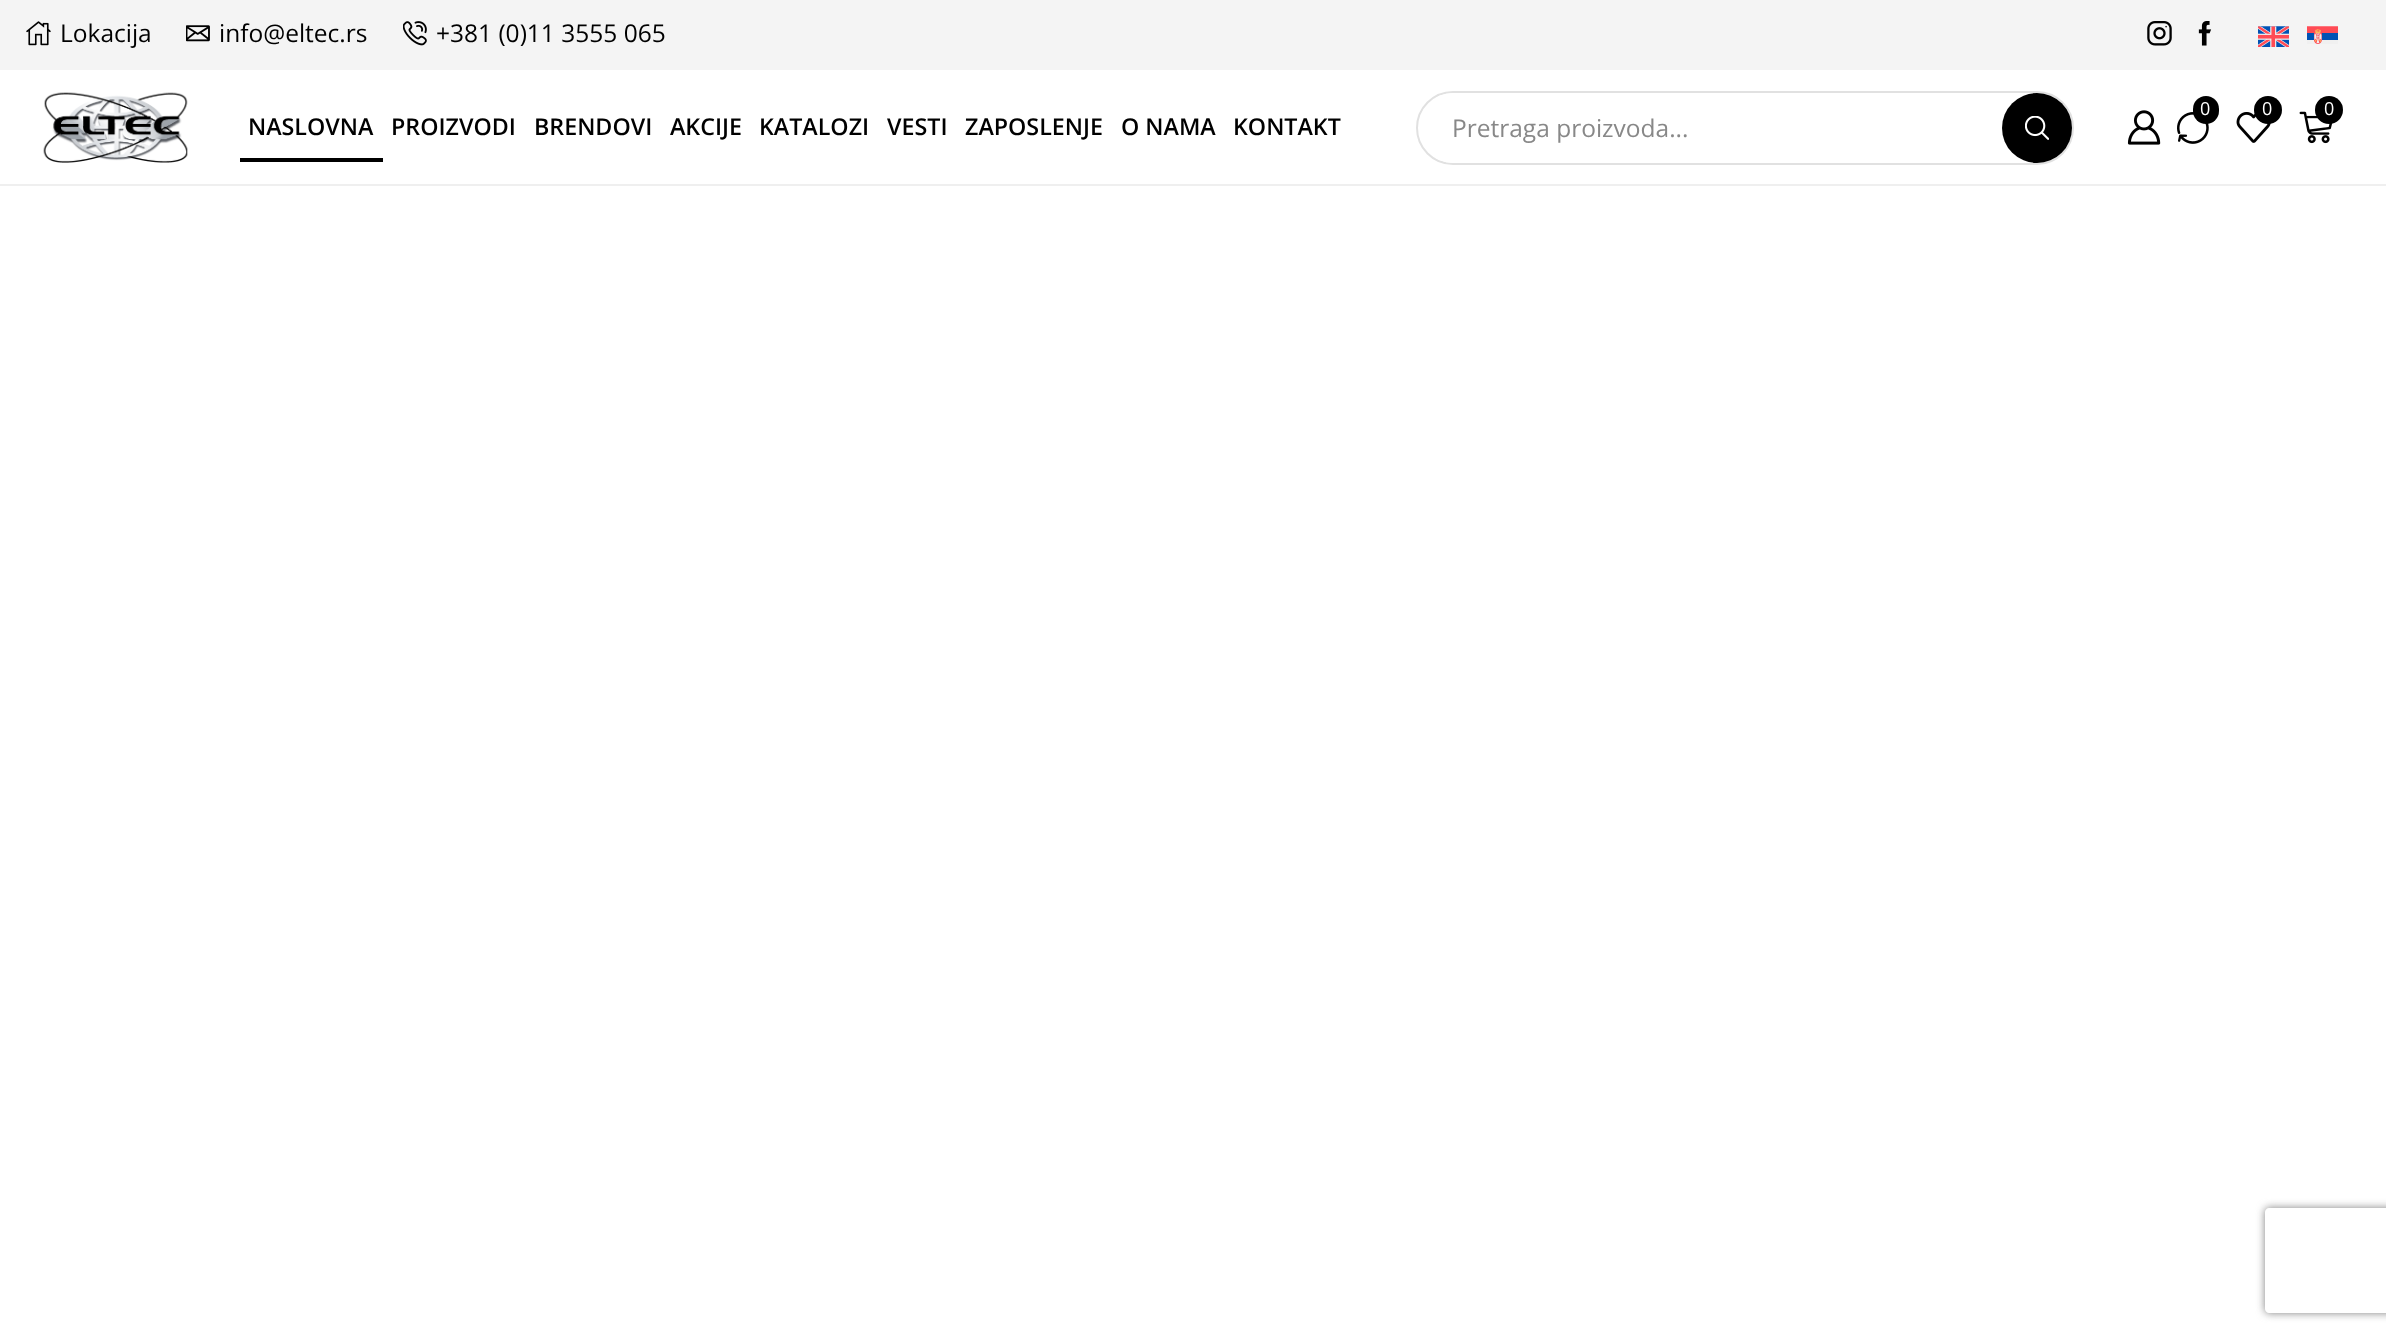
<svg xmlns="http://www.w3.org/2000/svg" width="2386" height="1336">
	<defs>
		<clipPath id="clip1"><rect x="1418" y="93" width="654" height="70" rx="35" /></clipPath>
		<clipPath id="clip2"><path d="M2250 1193H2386V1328H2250ZM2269 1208H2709C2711 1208 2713 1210 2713 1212V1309C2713 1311 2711 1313 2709 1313H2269C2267 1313 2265 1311 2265 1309V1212C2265 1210 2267 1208 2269 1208Z" clip-rule="evenodd" /></clipPath>
	</defs>
	<rect width="100%" height="100%" fill="#FFFFFF" />
	<rect x="0" y="0" width="2386" height="70" fill="#F4F4F4" />
	<image x="26" y="21" width="25" height="25" href="assets/img1.png" />
	<text x="60" y="42" font-family="Open Sans" font-size="24.5" fill="#000000">Lokacija</text>
	<image x="186" y="25" width="24" height="17" href="assets/img2.png" />
	<text x="219" y="42" font-family="Open Sans" font-size="24.5" fill="#000000">info@eltec.rs</text>
	<image x="403" y="21" width="24" height="25" href="assets/img3.png" />
	<text x="436" y="42" font-family="Open Sans" font-size="24.5" fill="#000000">+381 (0)11 3555 065</text>
	<image x="2147" y="21" width="25" height="25" href="assets/img4.png" />
	<image x="2198" y="21" width="14" height="25" href="assets/img5.png" />
	<image x="2258" y="26" width="31" height="21" href="assets/img6.png" />
	<image x="2307" y="26" width="31" height="18" href="assets/img7.png" />
	<rect x="0" y="184" width="2386" height="2" fill="#EFEFEF" />
	<image x="43" y="92" width="145" height="71" href="assets/img8.png" />
	<image x="2177" y="112" width="32" height="32" href="assets/img9.png" />
	<rect x="2193" y="96" width="26" height="28" rx="13" fill="#000000" />
	<text x="2200" y="115" font-family="Open Sans" font-size="18" fill="#FFFFFF">0</text>
	<image x="2236" y="112" width="35" height="31" href="assets/img10.png" />
	<circle cx="2268" cy="110" r="14" fill="#000000" />
	<text x="2262" y="115" font-family="Open Sans" font-size="18" fill="#FFFFFF">0</text>
	<image x="2299" y="111" width="34" height="33" href="assets/img11.png" />
	<circle cx="2329" cy="110" r="14" fill="#000000" />
	<text x="2324" y="115" font-family="Open Sans" font-size="18" fill="#FFFFFF">0</text>
	<image x="2127" y="110" width="34" height="35" href="assets/img12.png" />
	<text x="248" y="135" font-family="Open Sans" font-size="23.25" font-weight="600" fill="#000000">NASLOVNA</text>
	<rect x="240" y="158" width="143" height="4" fill="#000000" />
	<g font-family="Open Sans" font-size="23.25" font-weight="600" fill="#000000">
		<text x="391" y="135">PROIZVODI</text>
		<text x="534" y="135">BRENDOVI</text>
		<text x="670" y="135">AKCIJE</text>
		<text x="759" y="135">KATALOZI</text>
		<text x="887" y="135">VESTI</text>
		<text x="965" y="135">ZAPOSLENJE</text>
		<text x="1121" y="135">O NAMA</text>
		<text x="1233" y="135">KONTAKT</text>
	</g>
	<rect x="1417" y="92" width="656" height="72" rx="36" fill="none" stroke="#E1E1E1" stroke-width="2" />
	<g clip-path="url(#clip1)">
		<rect x="1435" y="93" width="567" height="70" fill="#FFFFFF" />
	</g>
	<text x="1452" y="137" font-family="Open Sans" font-size="24.5" fill="#888888">Pretraga proizvoda...</text>
	<circle cx="2037" cy="128" r="35" fill="#000000" />
	<image x="2025" y="116" width="24" height="24" href="assets/img13.png" />
	<g clip-path="url(#clip2)">
		<rect x="2265" y="1208" width="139" height="105" rx="4" fill="#808080" filter="blur(4.5px)" />
	</g>
</svg>
